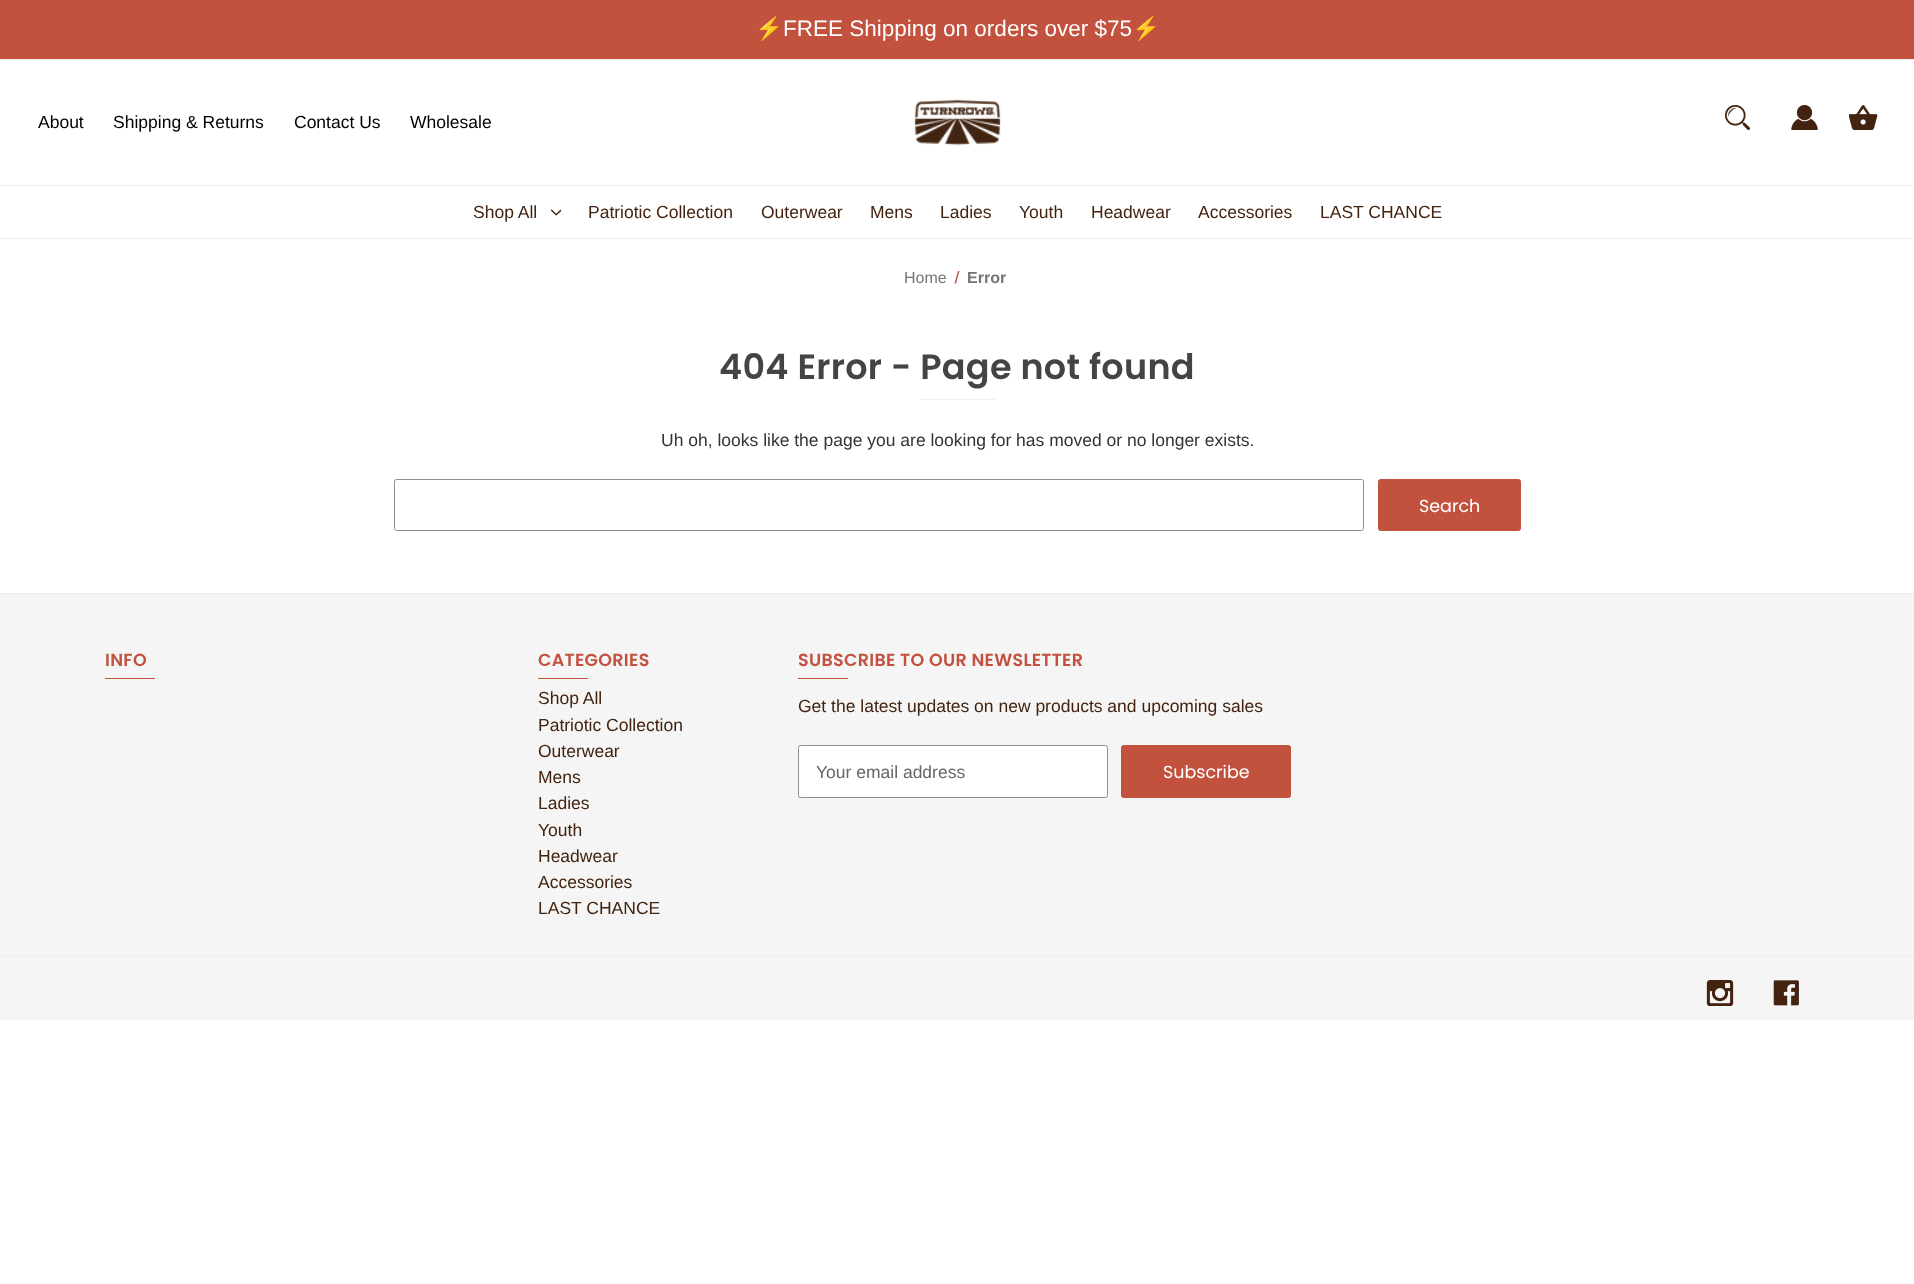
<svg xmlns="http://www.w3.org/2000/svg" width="1914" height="1284">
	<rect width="100%" height="100%" fill="#FFFFFF" />
	<rect x="0" y="0" width="1914" height="59" fill="#C2513E" />
	<text x="755" y="36" font-family="Noto Color Emoji" font-size="22.5" fill="#FFFFFF">⚡️</text>
	<text x="783" y="36" font-family="Liberation Sans" font-size="22.5" fill="#FFFFFF">FREE Shipping on orders over $75</text>
	<text x="1132" y="36" font-family="Noto Color Emoji" font-size="22.5" fill="#FFFFFF">⚡️</text>
	<rect x="0" y="238" width="1914" height="1" fill="#EEEEEE" />
	<rect x="0" y="59" width="1914" height="1" fill="#EEEEEE" />
	<rect x="0" y="185" width="1914" height="1" fill="#EEEEEE" />
	<g font-family="Liberation Sans" font-size="17.5" fill="#000000">
		<text x="38" y="128">About</text>
		<text x="113" y="128">Shipping &amp; Returns</text>
		<text x="294" y="128">Contact Us</text>
		<text x="410" y="128">Wholesale</text>
	</g>
	<image x="914" y="99" width="87" height="47" href="assets/img1.png" />
	<image x="1725" y="105" width="25" height="25" href="assets/img2.png" />
	<image x="1791" y="105" width="27" height="25" href="assets/img3.png" />
	<image x="1849" y="105" width="29" height="25" href="assets/img4.png" />
	<text x="473" y="218" font-family="Liberation Sans" font-size="17.5" fill="#432310">Shop All</text>
	<image x="551" y="209" width="10" height="7" href="assets/img5.png" />
	<g font-family="Liberation Sans" font-size="17.5" fill="#432310">
		<text x="588" y="218">Patriotic Collection</text>
		<text x="761" y="218">Outerwear</text>
		<text x="870" y="218">Mens</text>
		<text x="940" y="218">Ladies</text>
		<text x="1019" y="218">Youth</text>
		<text x="1091" y="218">Headwear</text>
		<text x="1198" y="218">Accessories</text>
		<text x="1320" y="218">LAST CHANCE</text>
	</g>
	<text x="904" y="283" font-family="Liberation Sans" font-size="16" fill="#757575">Home</text>
	<path d="M958 271H959.5L956 283.5H954.5Z" fill="#C2513E" />
	<text x="967" y="283" font-family="Liberation Sans" font-size="16" font-weight="700" fill="#757575">Error</text>
	<text x="719" y="379" font-family="Poppins" font-size="35" font-weight="600" letter-spacing="0.3" fill="#444444">404 Error - Page not found</text>
	<rect x="920" y="399" width="75" height="1" fill="#EEEEEE" />
	<text x="661" y="446" font-family="Liberation Sans" font-size="17.5" fill="#333333">Uh oh, looks like the page you are looking for has moved or no longer exists.</text>
	<rect x="394.5" y="479.5" width="969" height="51" rx="2" fill="none" stroke="#8F8F8F" />
	<rect x="1378.5" y="479.5" width="142" height="51" rx="2" fill="#C2513E" stroke="#C2513E" />
	<text x="1419" y="512" font-family="Poppins" font-size="17.5" fill="#FFFFFF">Search</text>
	<rect x="0" y="594" width="1914" height="426" fill="#F5F5F5" />
	<rect x="0" y="593" width="1914" height="1" fill="#EEEEEE" />
	<text x="105" y="666" font-family="Poppins" font-size="17.5" font-weight="600" letter-spacing="0.3" fill="#C2513E">INFO</text>
	<rect x="105" y="678" width="50" height="1" fill="#C2513E" />
	<text x="538" y="666" font-family="Poppins" font-size="17.5" font-weight="600" letter-spacing="0.3" fill="#C2513E">CATEGORIES</text>
	<rect x="538" y="678" width="50" height="1" fill="#C2513E" />
	<g font-family="Liberation Sans" font-size="17.5" fill="#432310">
		<text x="538" y="704">Shop All</text>
		<text x="538" y="731">Patriotic Collection</text>
		<text x="538" y="757">Outerwear</text>
		<text x="538" y="783">Mens</text>
		<text x="538" y="809">Ladies</text>
		<text x="538" y="836">Youth</text>
		<text x="538" y="862">Headwear</text>
		<text x="538" y="888">Accessories</text>
		<text x="538" y="914">LAST CHANCE</text>
	</g>
	<text x="798" y="666" font-family="Poppins" font-size="17.5" font-weight="600" letter-spacing="0.3" fill="#C2513E">SUBSCRIBE TO OUR NEWSLETTER</text>
	<rect x="798" y="678" width="50" height="1" fill="#C2513E" />
	<text x="798" y="712" font-family="Liberation Sans" font-size="17.5" fill="#432310">Get the latest updates on new products and upcoming sales</text>
	<rect x="798.5" y="745.5" width="309" height="52" rx="2" fill="#FFFFFF" stroke="#8F8F8F" />
	<text x="816" y="778" font-family="Liberation Sans" font-size="17.5" fill="#666666">Your email address</text>
	<rect x="1121.5" y="745.5" width="169" height="52" rx="2" fill="#C2513E" stroke="#C2513E" />
	<text x="1163" y="778" font-family="Poppins" font-size="17.5" fill="#FFFFFF">Subscribe</text>
	<rect x="0" y="956" width="1914" height="1" fill="#EEEEEE" />
	<image x="1706" y="980" width="28" height="26" href="assets/img6.png" />
	<image x="1773" y="980" width="26" height="26" href="assets/img7.png" />
</svg>
